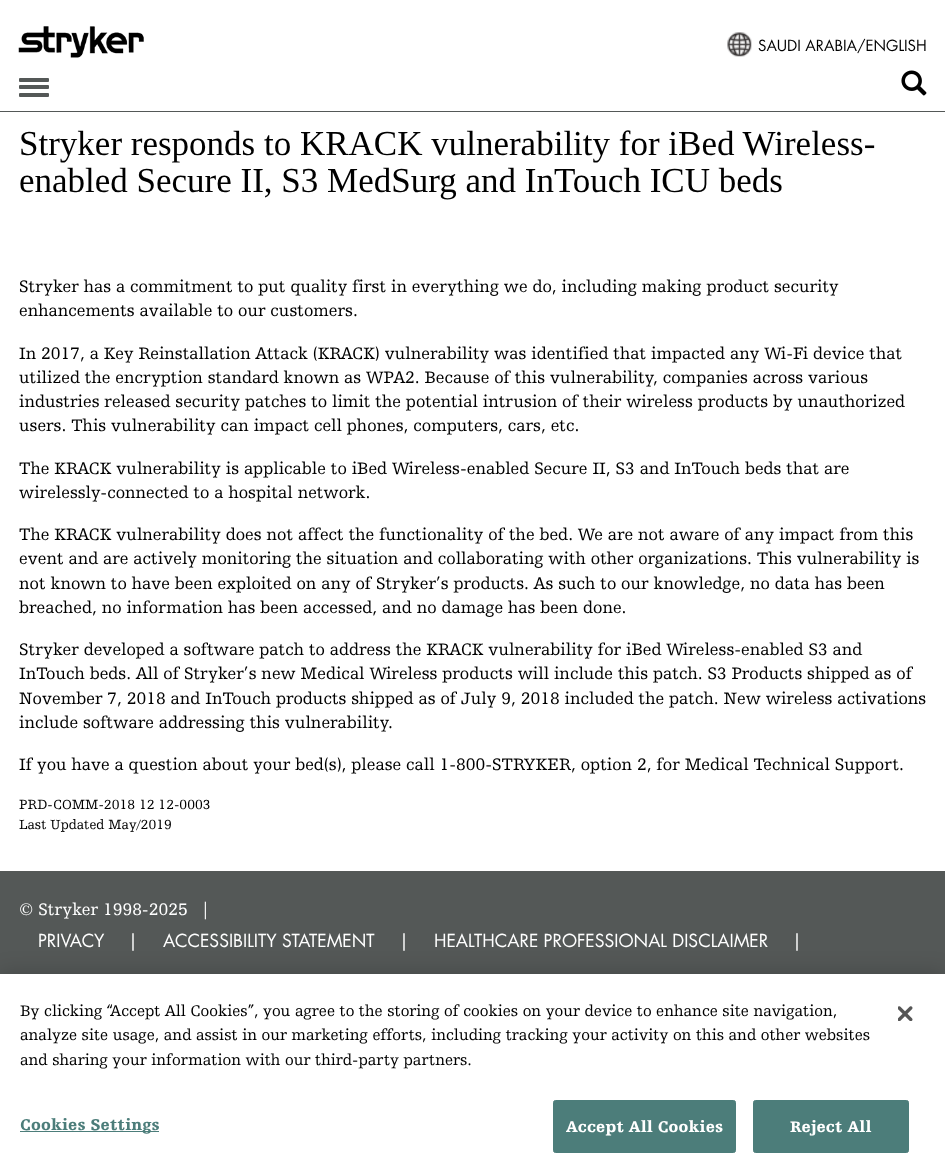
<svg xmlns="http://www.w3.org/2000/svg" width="945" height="1170">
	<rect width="100%" height="100%" fill="#FFFFFF" />
	<rect x="0" y="111" width="945" height="1" fill="#545857" />
	<image x="18" y="26" width="126" height="32" href="assets/img1.png" />
	<image x="727" y="32" width="25" height="25" href="assets/img2.png" />
	<text x="758" y="51" font-family="Futura" font-size="15" fill="#000000">SAUDI ARABIA/ENGLISH</text>
	<rect x="19" y="78" width="30" height="4" rx="1" fill="#545857" />
	<rect x="19" y="85" width="30" height="4" rx="1" fill="#545857" />
	<rect x="19" y="93" width="30" height="4" rx="1" fill="#545857" />
	<image x="901" y="70" width="26" height="26" href="assets/img3.png" />
	<g font-family="Liberation Serif" font-size="35" fill="#000000">
		<text x="19" y="155">Stryker responds to KRACK vulnerability for iBed Wireless-</text>
		<text x="19" y="192">enabled Secure II, S3 MedSurg and InTouch ICU beds</text>
	</g>
	<g font-family="'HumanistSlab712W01'" font-size="17.5" fill="#000000">
		<text x="19" y="292">Stryker has a commitment to put quality first in everything we do, including making product security</text>
		<text x="19" y="316">enhancements available to our customers.</text>
		<text x="19" y="359">In 2017, a Key Reinstallation Attack (KRACK) vulnerability was identified that impacted any Wi-Fi device that</text>
		<text x="19" y="383">utilized the encryption standard known as WPA2. Because of this vulnerability, companies across various</text>
		<text x="19" y="407">industries released security patches to limit the potential intrusion of their wireless products by unauthorized</text>
		<text x="19" y="431">users. This vulnerability can impact cell phones, computers, cars, etc.</text>
		<text x="19" y="474">The KRACK vulnerability is applicable to iBed Wireless-enabled Secure II, S3 and InTouch beds that are</text>
		<text x="19" y="498">wirelessly-connected to a hospital network.</text>
		<text x="19" y="540">The KRACK vulnerability does not affect the functionality of the bed. We are not aware of any impact from this</text>
		<text x="19" y="564">event and are actively monitoring the situation and collaborating with other organizations. This vulnerability is</text>
		<text x="19" y="589">not known to have been exploited on any of Stryker’s products. As such to our knowledge, no data has been</text>
		<text x="19" y="613">breached, no information has been accessed, and no damage has been done.</text>
		<text x="19" y="655">Stryker developed a software patch to address the KRACK vulnerability for iBed Wireless-enabled S3 and</text>
		<text x="19" y="679">InTouch beds. All of Stryker’s new Medical Wireless products will include this patch. S3 Products shipped as of</text>
		<text x="19" y="704">November 7, 2018 and InTouch products shipped as of July 9, 2018 included the patch. New wireless activations</text>
		<text x="19" y="728">include software addressing this vulnerability.</text>
		<text x="19" y="770">If you have a question about your bed(s), please call 1-800-STRYKER, option 2, for Medical Technical Support.</text>
	</g>
	<g font-family="'HumanistSlab712W01'" font-size="14" fill="#000000">
		<text x="19" y="809">PRD-COMM-2018 12 12-0003</text>
		<text x="19" y="829">Last Updated May/2019</text>
	</g>
	<rect x="0" y="871" width="945" height="103" fill="#545857" />
	<g font-family="'HumanistSlab712W01'" font-size="17.5" fill="#FFFFFF">
		<text x="19" y="915">© Stryker 1998-2025</text>
		<text x="201" y="915">|</text>
	</g>
	<g font-family="Futura" font-size="17.5" fill="#FFFFFF">
		<text x="38" y="947">PRIVACY</text>
		<text x="128" y="947">|</text>
		<text x="163" y="947">ACCESSIBILITY STATEMENT</text>
		<text x="399" y="947">|</text>
		<text x="434" y="947">HEALTHCARE PROFESSIONAL DISCLAIMER</text>
		<text x="792" y="947">|</text>
	</g>
	<rect x="0" y="974" width="945" height="196" fill="#000000" fill-opacity="0.2" filter="blur(11px)" />
	<rect x="0" y="974" width="945" height="196" fill="#FFFFFF" />
	<g font-family="'HumanistSlab712W01'" font-size="16.25" fill="#000000">
		<text x="20" y="1016">By clicking “Accept All Cookies”, you agree to the storing of cookies on your device to enhance site navigation,</text>
		<text x="20" y="1040">analyze site usage, and assist in our marketing efforts, including tracking your activity on this and other websites</text>
		<text x="20" y="1065">and sharing your information with our third-party partners.</text>
	</g>
	<rect x="20" y="1131" width="139" height="1" fill="#4C7D7A" />
	<text x="20" y="1130" font-family="'HumanistSlab712W01'" font-size="16.25" font-weight="900" letter-spacing="0.2" fill="#4C7D7A">Cookies Settings</text>
	<rect x="553.5" y="1100.5" width="182" height="52" rx="2" fill="#4C7D7A" stroke="#4C7D7A" />
	<text x="566" y="1132" font-family="'HumanistSlab712W01'" font-size="16.25" font-weight="900" letter-spacing="0.2" fill="#FFFFFF">Accept All Cookies</text>
	<rect x="753.5" y="1100.5" width="155" height="52" rx="2" fill="#4C7D7A" stroke="#4C7D7A" />
	<text x="790" y="1132" font-family="'HumanistSlab712W01'" font-size="16.25" font-weight="900" letter-spacing="0.2" fill="#FFFFFF">Reject All</text>
	<image x="898" y="1006" width="15" height="15" href="assets/img4.png" />
</svg>
